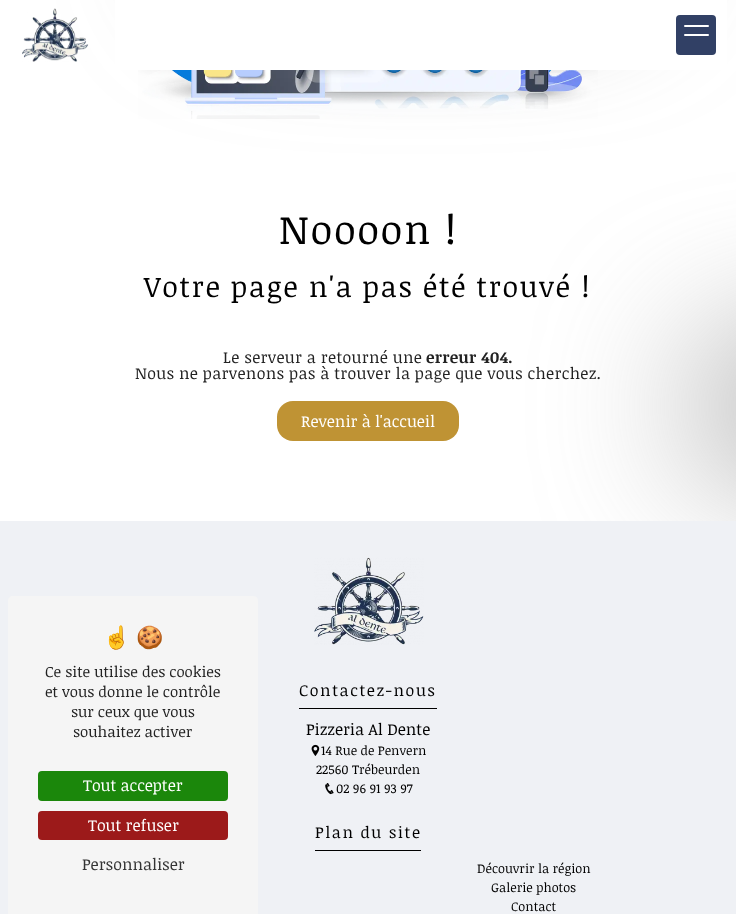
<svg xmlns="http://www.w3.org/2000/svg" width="736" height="914">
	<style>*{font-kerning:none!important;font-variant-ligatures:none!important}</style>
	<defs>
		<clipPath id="clip1"><rect x="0" y="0" width="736" height="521" /></clipPath>
	</defs>
	<rect width="100%" height="100%" fill="#FFFFFF" />
	<rect x="221" y="-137" width="400" height="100" rx="50" fill="#808080" filter="blur(80px)" />
	<rect x="115" y="0" width="612" height="70" fill="#FFFFFF" />
	<image x="22" y="8" width="67" height="54" href="assets/img1.png" />
	<rect x="676" y="15" width="40" height="40" rx="4" fill="#314065" />
	<rect x="684" y="34" width="25" height="2" rx="1" fill="#FFFFFF" />
	<rect x="684" y="25" width="25" height="2" rx="1" fill="#FFFFFF" />
	<rect x="0" y="521" width="736" height="393" fill="#EFF1F5" />
	<g clip-path="url(#clip1)">
		<rect x="699" y="356" width="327" height="100" rx="50" fill="#808080" filter="blur(80px)" />
	</g>
	<image x="138" y="70" width="460" height="49" href="assets/img2.png" />
	<text x="279" y="244" font-family="Noticia Text" font-size="40" letter-spacing="1.6" fill="#000000">Noooon !</text>
	<text x="144" y="297" font-family="Noticia Text" font-size="28.75" letter-spacing="1.6" fill="#000000">Votre page n'a pas été trouvé !</text>
	<text x="223" y="363" font-family="Noticia Text" font-size="16" letter-spacing="0.32" fill="#222222">Le serveur a retourné une</text>
	<text x="426" y="363" font-family="Noticia Text" font-size="16" font-weight="700" letter-spacing="0.32" fill="#222222">erreur 404.</text>
	<text x="135" y="379" font-family="Noticia Text" font-size="16" letter-spacing="0.32" fill="#222222">Nous ne parvenons pas à trouver la page que vous cherchez.</text>
	<rect x="277" y="401" width="182" height="40" rx="16" fill="#BF9334" />
	<text x="301" y="427" font-family="Noticia Text" font-size="16" fill="#FFFFFF">Revenir à l'accueil</text>
	<path d="M13 596H253C256 596 258 598 258 601V914H8V601C8 598 10 596 13 596Z" fill="#F5F5F5" />
	<g font-family="Noto Color Emoji" font-size="22" fill="#222222">
		<text x="103" y="645">☝</text>
		<text x="136" y="645">🍪</text>
	</g>
	<g font-family="Noticia Text" font-size="15" fill="#222222">
		<text x="45" y="677">Ce site utilise des cookies</text>
		<text x="45" y="697">et vous donne le contrôle</text>
		<text x="71" y="717">sur ceux que vous</text>
		<text x="73" y="737">souhaitez activer</text>
	</g>
	<rect x="38" y="771" width="190" height="30" rx="4" fill="#1B870B" />
	<text x="83" y="791" font-family="Noticia Text" font-size="16" fill="#FFFFFF">Tout accepter</text>
	<rect x="38" y="811" width="190" height="29" rx="4" fill="#9C1A1A" />
	<text x="88" y="831" font-family="Noticia Text" font-size="16" fill="#FFFFFF">Tout refuser</text>
	<text x="82" y="870" font-family="Noticia Text" font-size="16" fill="#333333">Personnaliser</text>
	<image x="314" y="557" width="110" height="88" href="assets/img3.png" />
	<rect x="299" y="708" width="138" height="1" fill="#000000" />
	<text x="299" y="696" font-family="Noticia Text" font-size="16" letter-spacing="1.6" fill="#000000">Contactez-nous</text>
	<text x="306" y="735" font-family="Noticia Text" font-size="16" fill="#000000">Pizzeria Al Dente</text>
	<image x="311" y="744" width="9" height="12" href="assets/img4.png" />
	<g font-family="Noticia Text" font-size="12.75" fill="#000000">
		<text x="321" y="755">14 Rue de Penvern</text>
		<text x="316" y="774">22560 Trébeurden</text>
	</g>
	<image x="325" y="783" width="9" height="12" href="assets/img5.png" />
	<text x="336" y="793" font-family="Noticia Text" font-size="12.75" fill="#000000">02 96 91 93 97</text>
	<rect x="315" y="850" width="106" height="1" fill="#000000" />
	<text x="315" y="838" font-family="Noticia Text" font-size="16" letter-spacing="1.6" fill="#000000">Plan du site</text>
	<g font-family="Noticia Text" font-size="12.75" fill="#000000">
		<text x="477" y="873">Découvrir la région</text>
		<text x="491" y="892">Galerie photos</text>
		<text x="511" y="911">Contact</text>
	</g>
</svg>
